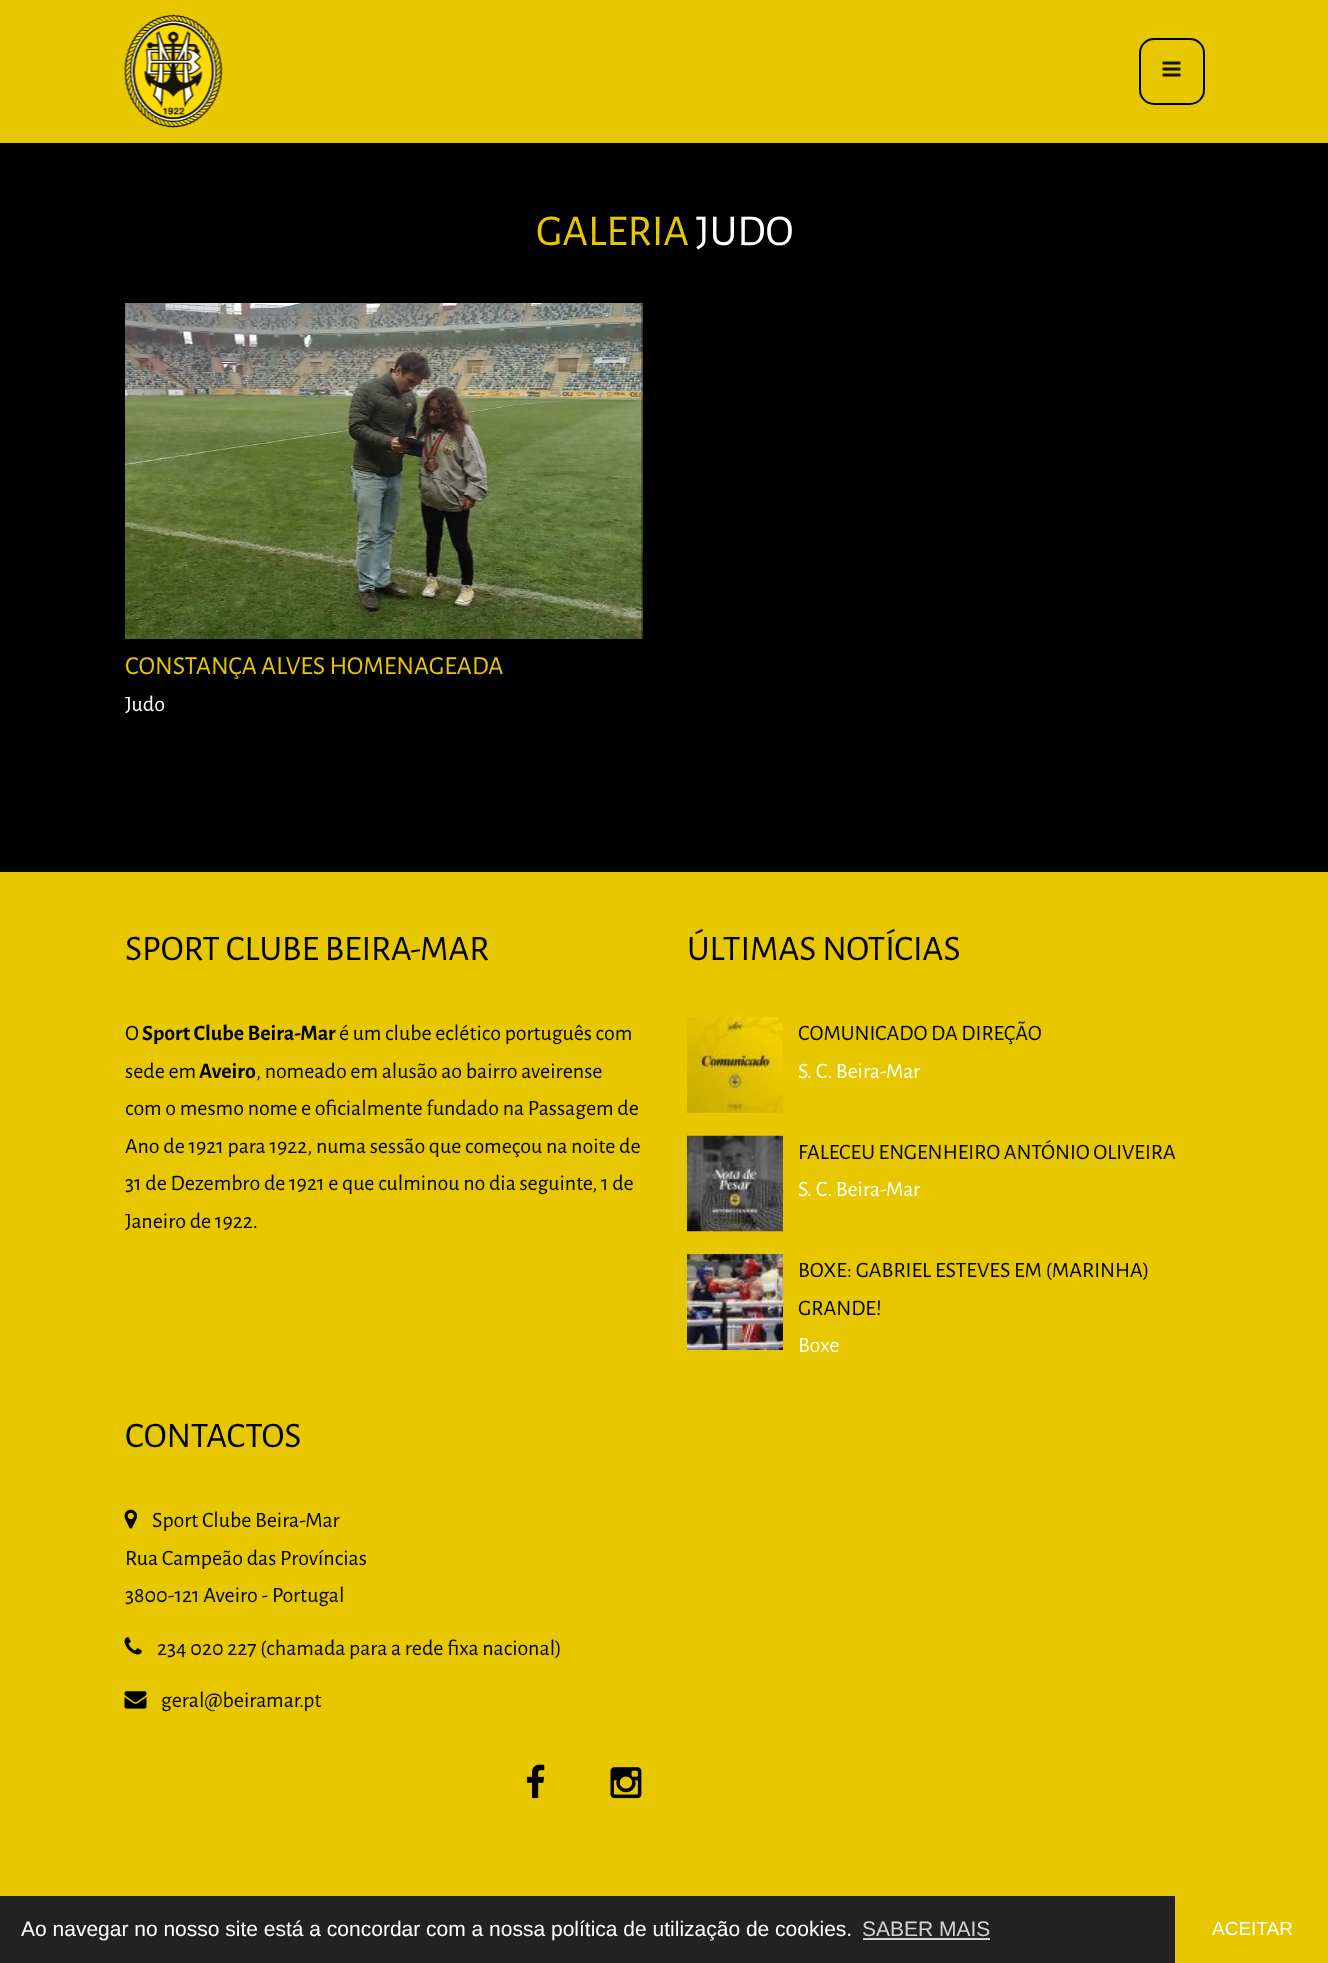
<svg xmlns="http://www.w3.org/2000/svg" width="1328" height="1963">
	<rect width="100%" height="100%" fill="#000000" />
	<rect x="0" y="0" width="1328" height="143" fill="#E6C700" />
	<image x="124" y="15" width="99" height="113" href="assets/img1.png" />
	<rect x="1140" y="39" width="64" height="65" rx="14" fill="none" stroke="#000000" stroke-width="2" />
	<image x="1162" y="61" width="19" height="16" href="assets/img2.png" />
	<text x="536" y="245" font-family="Alegreya Sans" font-size="44" fill="#E6C700">GALERIA</text>
	<text x="696" y="245" font-family="Alegreya Sans" font-size="44" fill="#FFFFFF">JUDO</text>
	<image x="125" y="303" width="518" height="336" href="assets/img3.png" />
	<text x="125" y="674" font-family="Alegreya Sans" font-size="26" fill="#E6C700">CONSTANÇA ALVES HOMENAGEADA</text>
	<text x="125" y="711" font-family="Alegreya Sans" font-size="22" fill="#FFFFFF">Judo</text>
	<rect x="0" y="872" width="1328" height="1024" fill="#E6C700" />
	<text x="125" y="960" font-family="Alegreya Sans" font-size="36" fill="#000000">SPORT CLUBE BEIRA-MAR</text>
	<text x="125" y="1040" font-family="Alegreya Sans" font-size="22" fill="#000000">O</text>
	<text x="142" y="1040" font-family="Alegreya Sans" font-size="22" font-weight="700" fill="#000000">Sport Clube Beira-Mar</text>
	<g font-family="Alegreya Sans" font-size="22" fill="#000000">
		<text x="339" y="1040">é um clube eclético português com</text>
		<text x="125" y="1078">sede em</text>
	</g>
	<text x="199" y="1078" font-family="Alegreya Sans" font-size="22" font-weight="700" fill="#000000">Aveiro</text>
	<g font-family="Alegreya Sans" font-size="22" fill="#000000">
		<text x="256" y="1078">, nomeado em alusão ao bairro aveirense</text>
		<text x="125" y="1115">com o mesmo nome e oficialmente fundado na Passagem de</text>
		<text x="125" y="1153">Ano de 1921 para 1922, numa sessão que começou na noite de</text>
		<text x="125" y="1190">31 de Dezembro de 1921 e que culminou no dia seguinte, 1 de</text>
		<text x="125" y="1228">Janeiro de 1922.</text>
	</g>
	<text x="687" y="960" font-family="Alegreya Sans" font-size="36" fill="#000000">ÚLTIMAS NOTÍCIAS</text>
	<image x="687" y="1017" width="96" height="96" href="assets/img4.png" />
	<text x="798" y="1040" font-family="Alegreya Sans" font-size="22" fill="#000000">COMUNICADO DA DIREÇÃO</text>
	<text x="798" y="1078" font-family="Alegreya Sans" font-size="22" fill="#FFFFFF">S. C. Beira-Mar</text>
	<image x="687" y="1135" width="96" height="97" href="assets/img5.png" />
	<text x="798" y="1159" font-family="Alegreya Sans" font-size="22" fill="#000000">FALECEU ENGENHEIRO ANTÓNIO OLIVEIRA</text>
	<text x="798" y="1196" font-family="Alegreya Sans" font-size="22" fill="#FFFFFF">S. C. Beira-Mar</text>
	<image x="687" y="1254" width="96" height="96" href="assets/img6.png" />
	<g font-family="Alegreya Sans" font-size="22" fill="#000000">
		<text x="798" y="1277">BOXE: GABRIEL ESTEVES EM (MARINHA)</text>
		<text x="798" y="1315">GRANDE!</text>
	</g>
	<text x="798" y="1352" font-family="Alegreya Sans" font-size="22" fill="#FFFFFF">Boxe</text>
	<text x="125" y="1447" font-family="Alegreya Sans" font-size="36" fill="#000000">CONTACTOS</text>
	<image x="124" y="1509" width="14" height="20" href="assets/img7.png" />
	<g font-family="Alegreya Sans" font-size="22" fill="#000000">
		<text x="152" y="1527">Sport Clube Beira-Mar</text>
		<text x="125" y="1565">Rua Campeão das Províncias</text>
		<text x="125" y="1602">3800-121 Aveiro - Portugal</text>
	</g>
	<image x="124" y="1637" width="18" height="18" href="assets/img8.png" />
	<text x="157" y="1655" font-family="Alegreya Sans" font-size="22" fill="#000000">234 020 227 (chamada para a rede fixa nacional)</text>
	<image x="124" y="1691" width="23" height="18" href="assets/img9.png" />
	<text x="161" y="1707" font-family="Alegreya Sans" font-size="22" fill="#000000">geral@beiramar.pt</text>
	<image x="526" y="1764" width="19" height="35" href="assets/img10.png" />
	<image x="610" y="1767" width="32" height="32" href="assets/img11.png" />
	<rect x="0" y="1896" width="1175" height="67" fill="#222222" />
	<text x="21" y="1936" font-family="Liberation Sans" font-size="21" fill="#FFFFFF">Ao navegar no nosso site está a concordar com a nossa política de utilização de cookies.</text>
	<text x="862" y="1936" font-family="Liberation Sans" font-size="21" fill="#D3D3D3">SABER MAIS</text>
	<rect x="863" y="1938" width="127" height="2" fill="#D3D3D3" />
	<rect x="1175" y="1896" width="153" height="67" fill="#E6C700" />
	<text x="1212" y="1935" font-family="Liberation Sans" font-size="19" fill="#FFFFFF">ACEITAR</text>
</svg>
